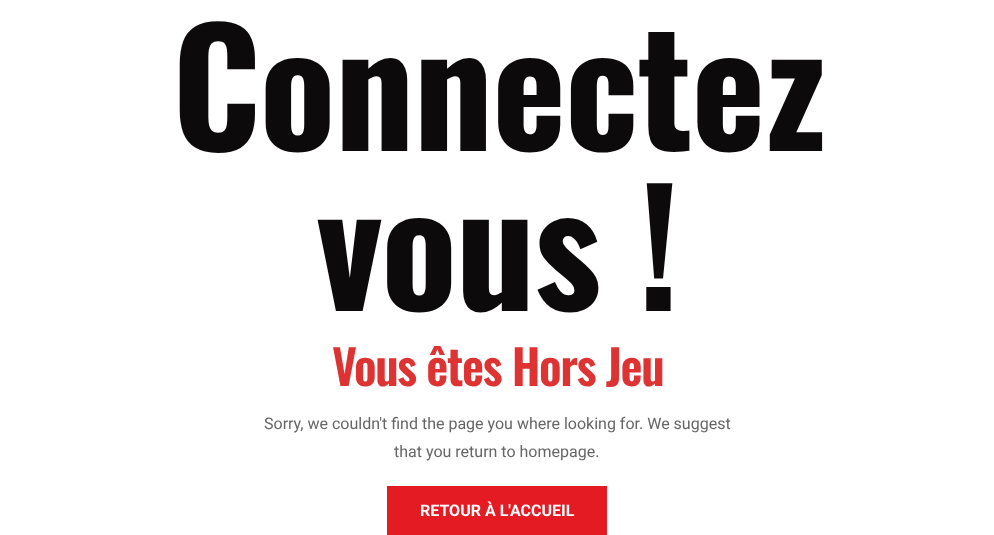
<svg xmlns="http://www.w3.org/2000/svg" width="994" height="535">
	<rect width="100%" height="100%" fill="#FFFFFF" />
	<g font-family="Oswald" font-size="158" font-weight="700" letter-spacing="-1.4" fill="#0C0A0A">
		<text x="172" y="151">Connectez</text>
		<text x="316" y="311">vous !</text>
	</g>
	<text x="332" y="386" font-family="Oswald" font-size="48" font-weight="600" letter-spacing="-1.4" fill="#DD3333">Vous êtes Hors Jeu</text>
	<g font-family="Roboto" font-size="16" fill="#666666">
		<text x="264" y="429">Sorry, we couldn't find the page you where looking for. We suggest</text>
		<text x="394" y="457">that you return to homepage.</text>
	</g>
	<rect x="387" y="486" width="220" height="49" fill="#E41B23" />
	<text x="420" y="516" font-family="Roboto" font-size="16" font-weight="700" fill="#FFFFFF">RETOUR À L'ACCUEIL</text>
</svg>
